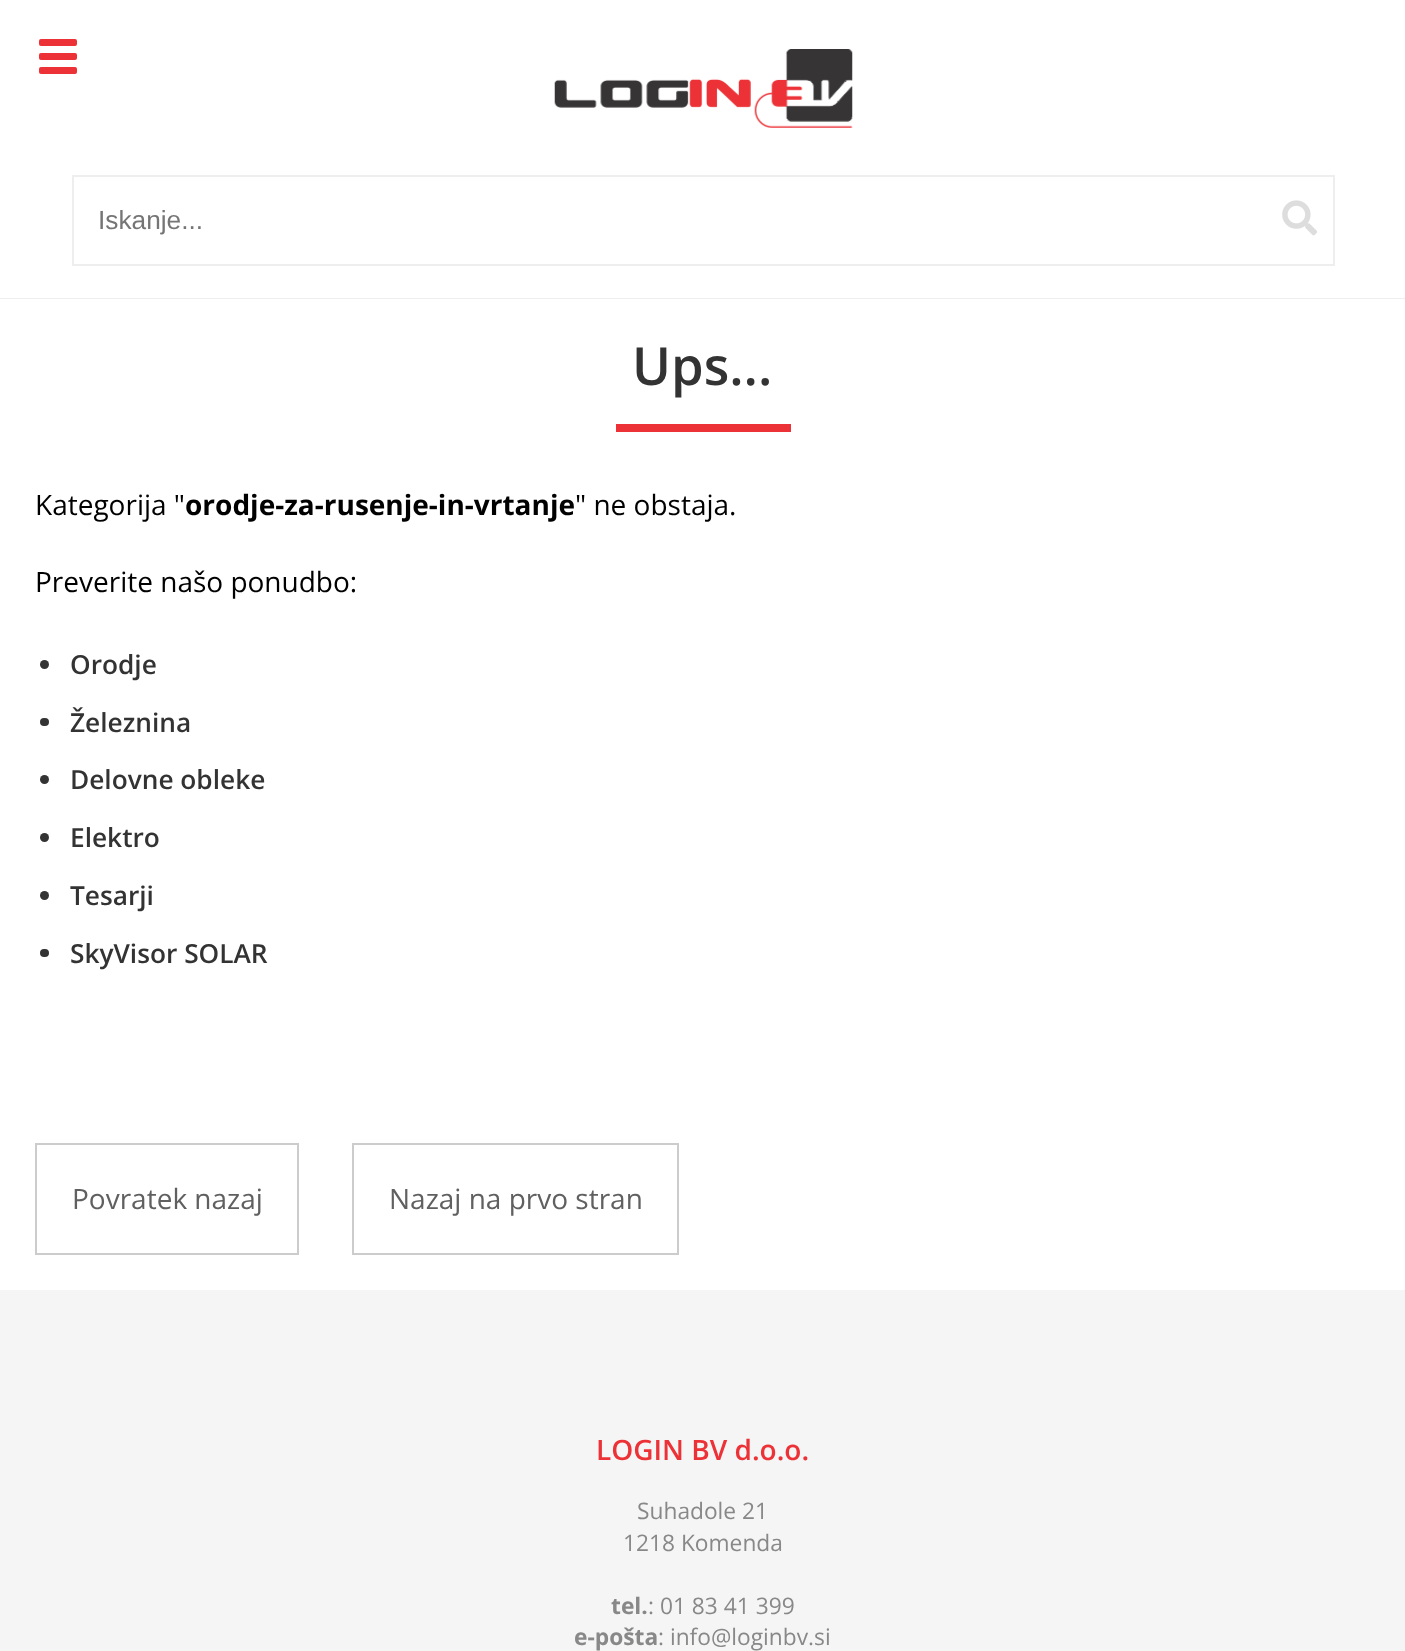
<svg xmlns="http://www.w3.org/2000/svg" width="1405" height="1651">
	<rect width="100%" height="100%" fill="#FFFFFF" />
	<rect x="0" y="298" width="1405" height="1" fill="#EEEEEE" />
	<rect x="39" y="39" width="38" height="7" rx="2" fill="#ED3237" />
	<rect x="39" y="53" width="38" height="7" rx="2" fill="#ED3237" />
	<rect x="39" y="67" width="38" height="7" rx="2" fill="#ED3237" />
	<image x="554" y="49" width="299" height="79" href="assets/img1.png" />
	<rect x="73" y="176" width="1261" height="89" fill="none" stroke="#EEEEEE" stroke-width="2" />
	<text x="98" y="229" font-family="Liberation Sans" font-size="26.25" fill="#757575">Iskanje...</text>
	<image x="1282" y="200" width="35" height="36" href="assets/img2.png" />
	<text x="632" y="385" font-family="Open Sans" font-size="52.5" font-weight="600" fill="#333333">Ups...</text>
	<rect x="616" y="424" width="175" height="8" fill="#ED3237" />
	<text x="35" y="515" font-family="Open Sans" font-size="28" fill="#000000">Kategorija "</text>
	<text x="185" y="515" font-family="Open Sans" font-size="28" font-weight="700" fill="#000000">orodje-za-rusenje-in-vrtanje</text>
	<g font-family="Open Sans" font-size="28" fill="#000000">
		<text x="575" y="515">" ne obstaja.</text>
		<text x="35" y="592">Preverite našo ponudbo:</text>
	</g>
	<circle cx="44.5" cy="664.5" r="4.5" fill="#333333" />
	<text x="70" y="674" font-family="Open Sans" font-size="26.25" font-weight="600" fill="#333333">Orodje</text>
	<rect x="40" y="718" width="9" height="8" rx="4" fill="#333333" />
	<text x="70" y="732" font-family="Open Sans" font-size="26.25" font-weight="600" fill="#333333">Železnina</text>
	<circle cx="44.5" cy="779.5" r="4.5" fill="#333333" />
	<text x="70" y="789" font-family="Open Sans" font-size="26.25" font-weight="600" fill="#333333">Delovne obleke</text>
	<circle cx="44.5" cy="837.5" r="4.5" fill="#333333" />
	<text x="70" y="847" font-family="Open Sans" font-size="26.25" font-weight="600" fill="#333333">Elektro</text>
	<circle cx="44.5" cy="895.5" r="4.5" fill="#333333" />
	<text x="70" y="905" font-family="Open Sans" font-size="26.25" font-weight="600" fill="#333333">Tesarji</text>
	<rect x="40" y="949" width="9" height="8" rx="4" fill="#333333" />
	<text x="70" y="963" font-family="Open Sans" font-size="26.25" font-weight="600" fill="#333333">SkyVisor SOLAR</text>
	<rect x="36" y="1144" width="262" height="110" fill="none" stroke="#CCCCCC" stroke-width="2" />
	<text x="72" y="1209" font-family="Open Sans" font-size="28" fill="#606060">Povratek nazaj</text>
	<rect x="353" y="1144" width="325" height="110" fill="none" stroke="#CCCCCC" stroke-width="2" />
	<text x="389" y="1209" font-family="Open Sans" font-size="28" fill="#606060">Nazaj na prvo stran</text>
	<rect x="0" y="1290" width="1405" height="361" fill="#F5F5F5" />
	<text x="596" y="1460" font-family="Open Sans" font-size="28" font-weight="600" fill="#ED3237">LOGIN BV d.o.o.</text>
	<g font-family="Open Sans" font-size="22.75" fill="#888888">
		<text x="637" y="1519">Suhadole 21</text>
		<text x="623" y="1551">1218 Komenda</text>
	</g>
	<text x="611" y="1614" font-family="Open Sans" font-size="22.75" font-weight="700" fill="#888888">tel.</text>
	<text x="648" y="1614" font-family="Open Sans" font-size="22.75" fill="#888888">: 01 83 41 399</text>
	<text x="574" y="1645" font-family="Open Sans" font-size="22.75" font-weight="700" fill="#888888">e-pošta</text>
	<text x="658" y="1645" font-family="Open Sans" font-size="22.75" fill="#888888">: info@loginbv.si</text>
</svg>
